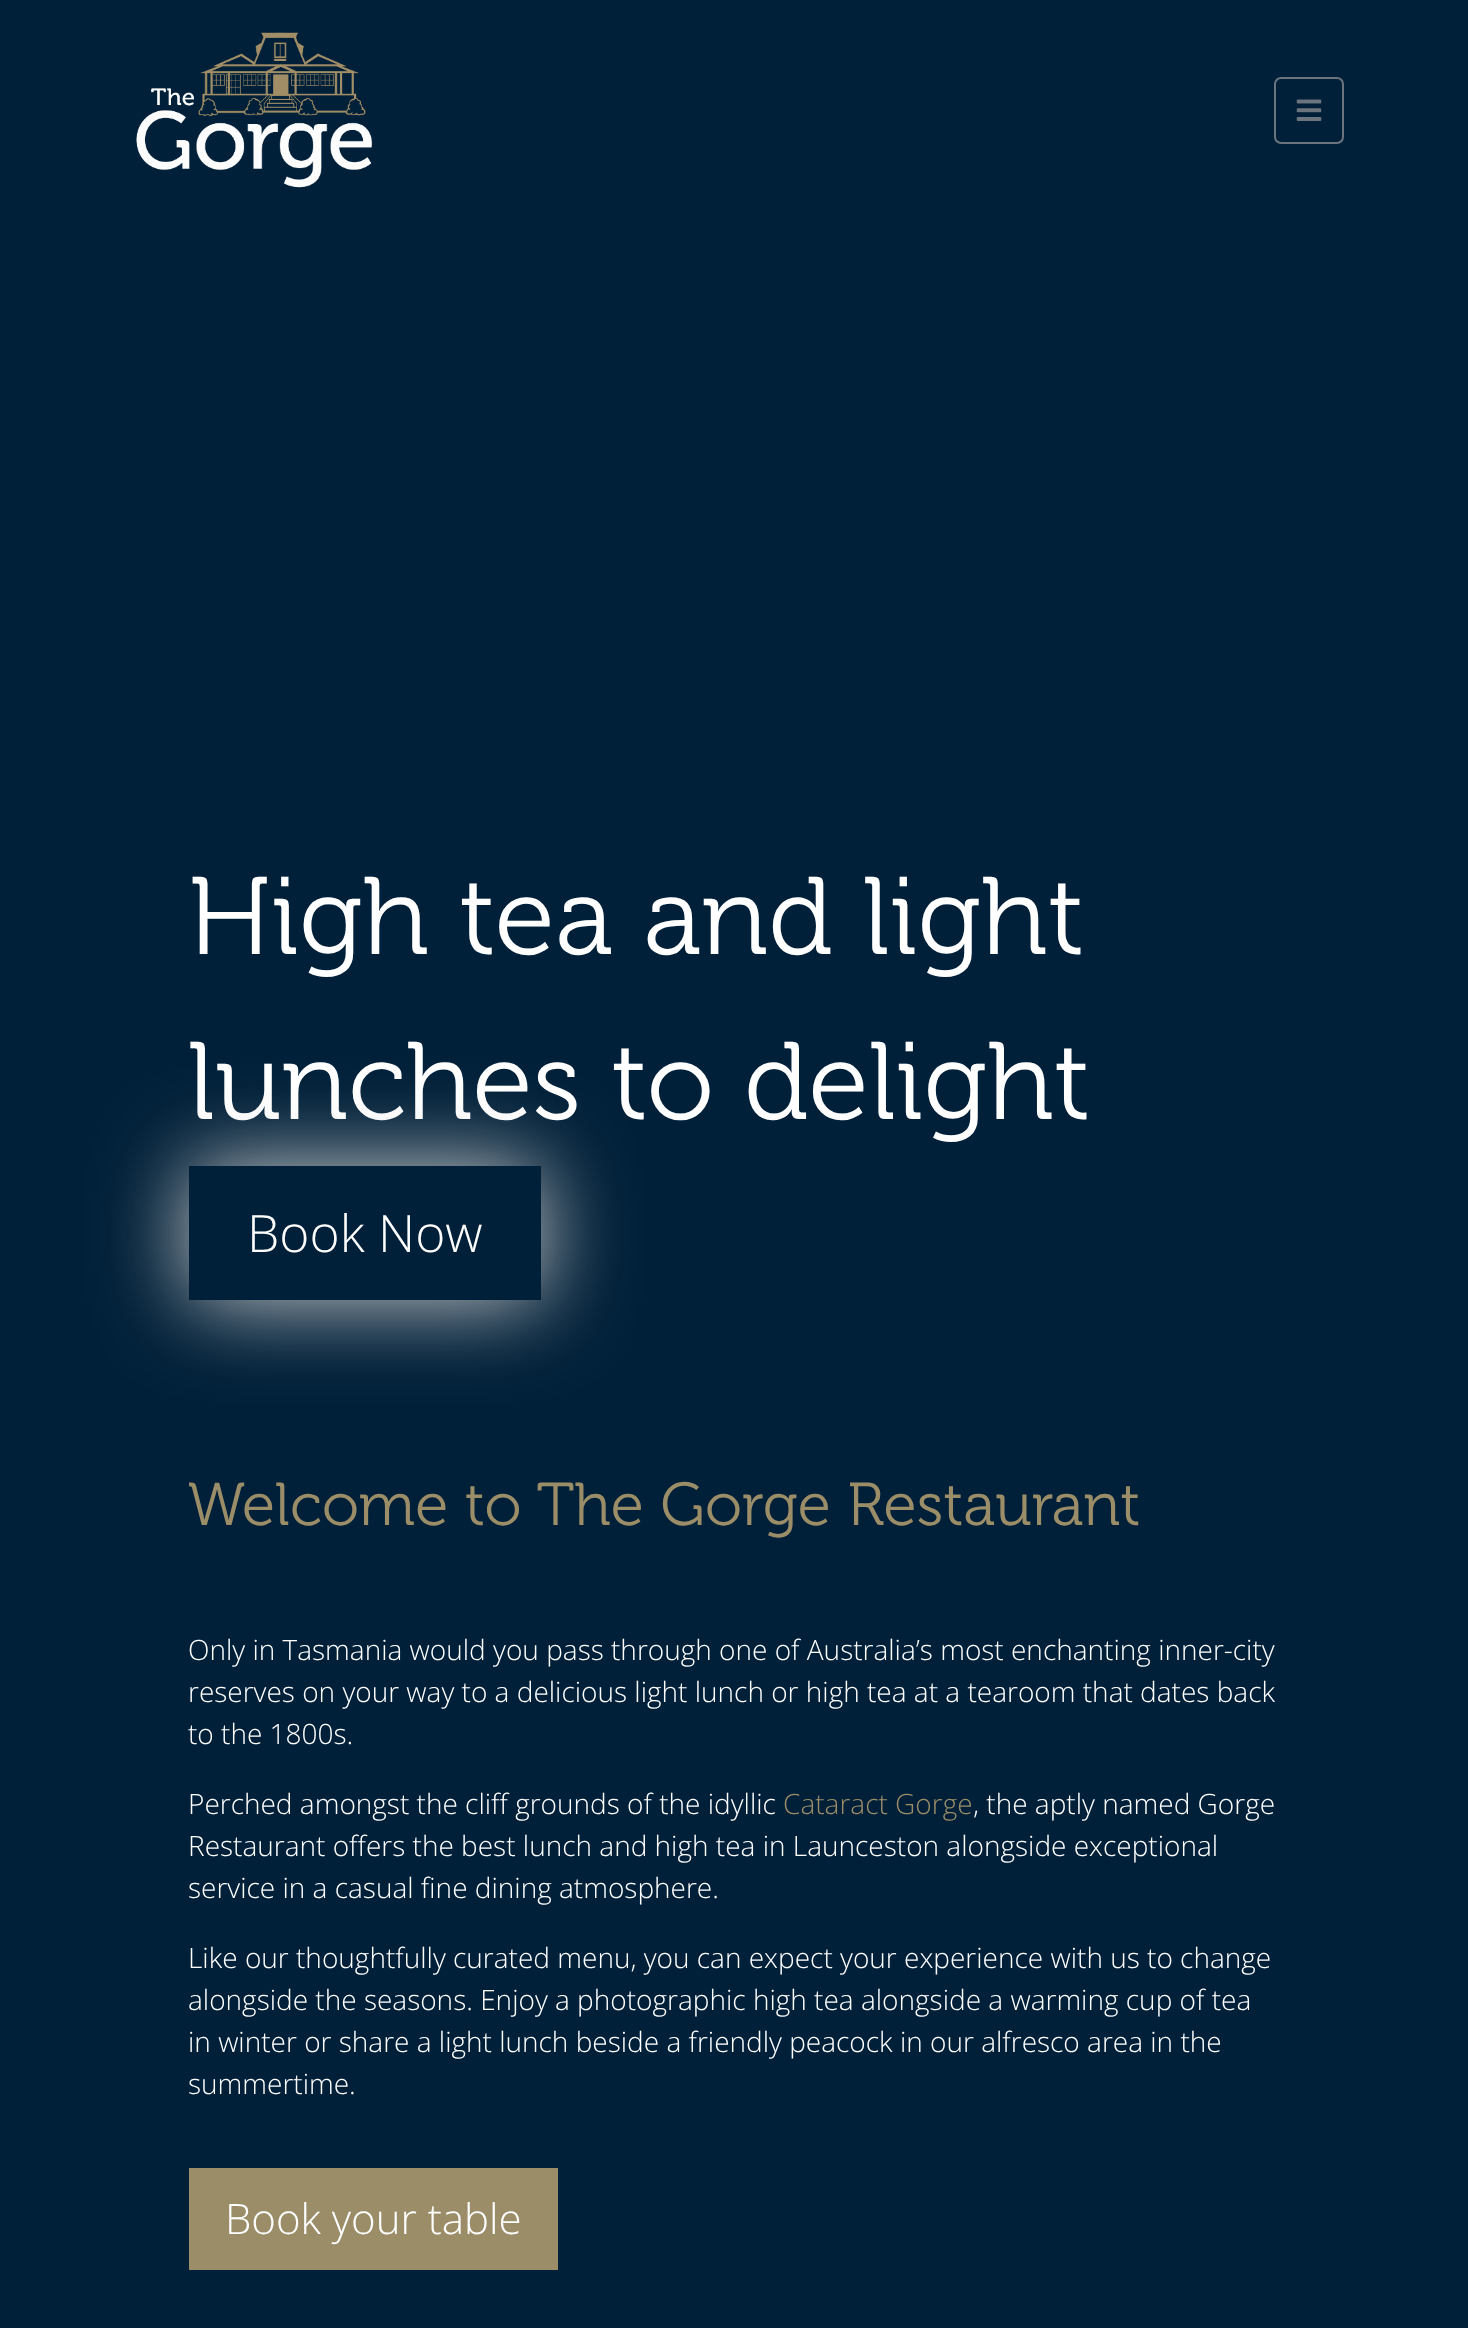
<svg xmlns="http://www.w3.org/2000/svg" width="1468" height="2328">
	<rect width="100%" height="100%" fill="#002039" />
	<image x="136" y="32" width="237" height="156" href="assets/img1.png" />
	<rect x="1275" y="78" width="68" height="65" rx="6" fill="none" stroke="#6C757D" stroke-width="2" />
	<image x="1296" y="99" width="26" height="22" href="assets/img2.png" />
	<g font-family="'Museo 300'" font-size="110" font-weight="300" fill="#FFFFFF">
		<text x="188" y="954">High tea and light</text>
		<text x="188" y="1119">lunches to delight</text>
	</g>
	<rect x="189" y="1166" width="352" height="134" fill="#D3D3D3" filter="blur(44px)" />
	<rect x="189" y="1166" width="352" height="134" fill="#002039" />
	<text x="247" y="1252" font-family="Open Sans" font-size="51.5" font-weight="300" fill="#FFFFFF">Book Now</text>
	<text x="188" y="1525" font-family="'Museo 300'" font-size="60.5" font-weight="300" fill="#9B8D68">Welcome to The Gorge Restaurant</text>
	<g font-family="Open Sans" font-size="28" font-weight="300" fill="#FFFFFF">
		<text x="188" y="1660">Only in Tasmania would you pass through one of Australia’s most enchanting inner-city</text>
		<text x="188" y="1702">reserves on your way to a delicious light lunch or high tea at a tearoom that dates back</text>
		<text x="188" y="1744">to the 1800s.</text>
		<text x="188" y="1814">Perched amongst the cliff grounds of the idyllic</text>
	</g>
	<text x="783" y="1814" font-family="Open Sans" font-size="28" font-weight="300" fill="#9B8D68">Cataract Gorge</text>
	<g font-family="Open Sans" font-size="28" font-weight="300" fill="#FFFFFF">
		<text x="973" y="1814">, the aptly named Gorge</text>
		<text x="188" y="1856">Restaurant offers the best lunch and high tea in Launceston alongside exceptional</text>
		<text x="188" y="1898">service in a casual fine dining atmosphere.</text>
		<text x="188" y="1968">Like our thoughtfully curated menu, you can expect your experience with us to change</text>
		<text x="188" y="2010">alongside the seasons. Enjoy a photographic high tea alongside a warming cup of tea</text>
		<text x="188" y="2052">in winter or share a light lunch beside a friendly peacock in our alfresco area in the</text>
		<text x="188" y="2094">summertime.</text>
	</g>
	<rect x="189" y="2168" width="369" height="102" fill="#9B8D68" />
	<text x="225" y="2234" font-family="Open Sans" font-size="42" font-weight="300" fill="#FFFFFF">Book your table</text>
</svg>
